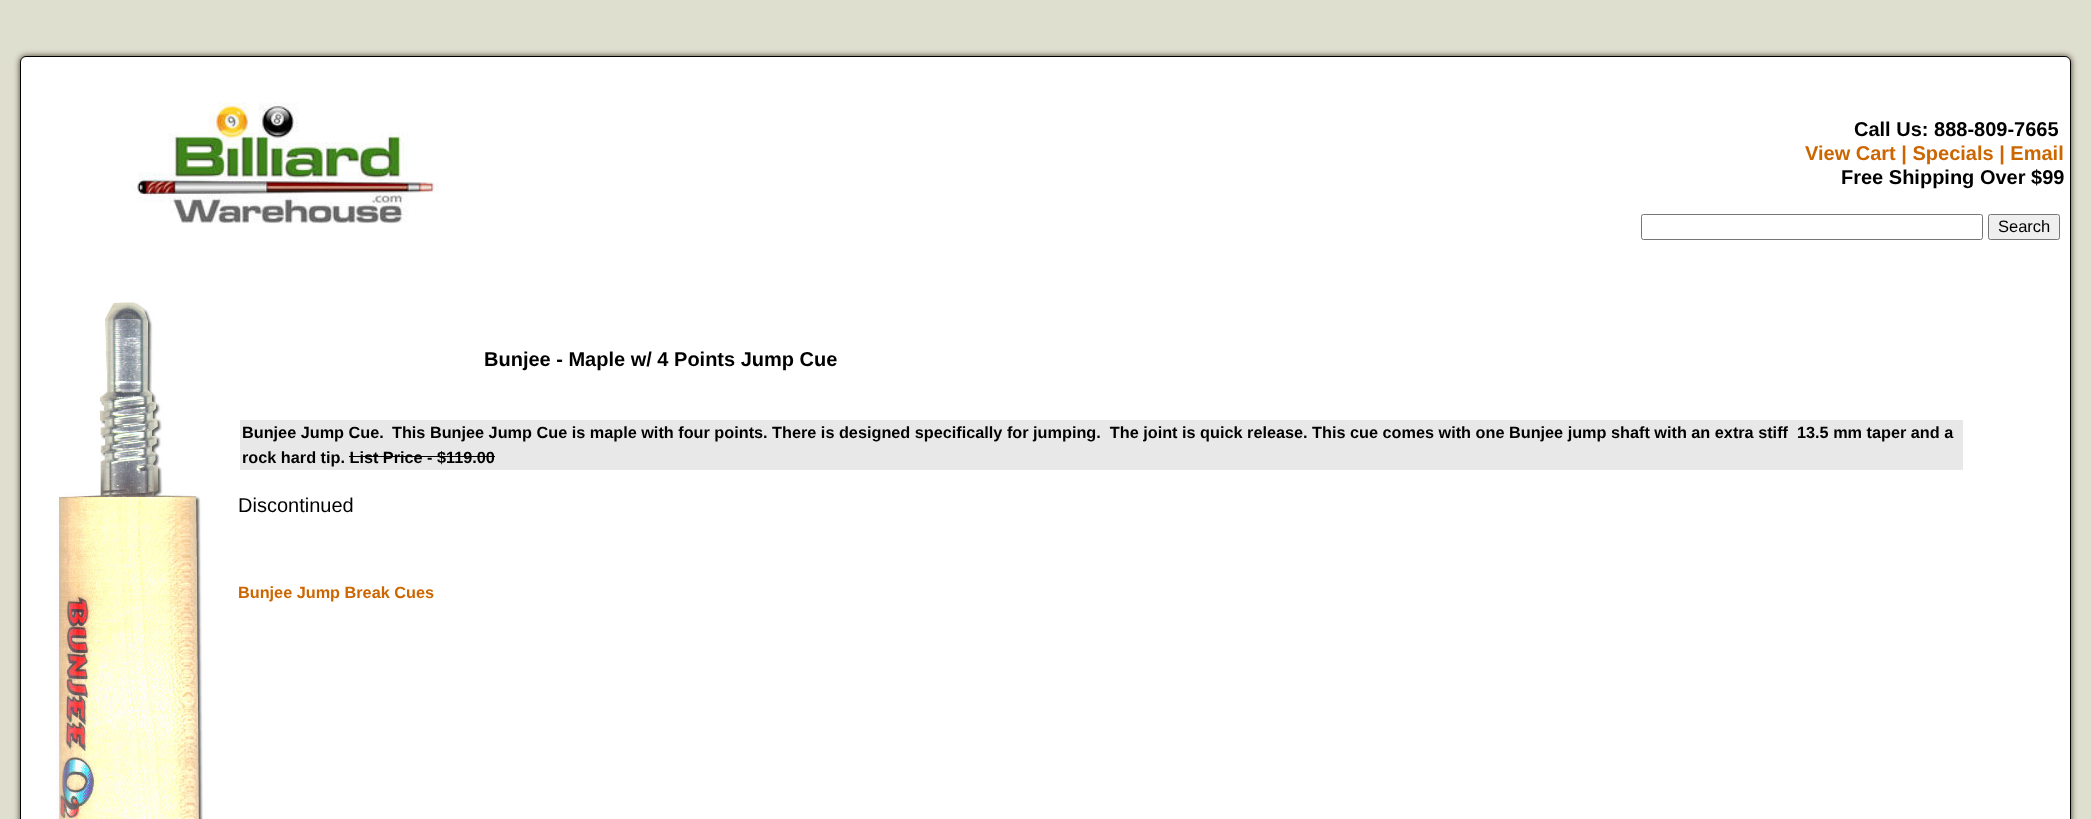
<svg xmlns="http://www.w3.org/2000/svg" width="2091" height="819">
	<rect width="100%" height="100%" fill="#DFDFD0" />
	<rect x="20" y="56" width="2051" height="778" rx="6" fill="#453823" filter="blur(3px)" />
	<rect x="20.5" y="56.5" width="2050" height="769" rx="5.5" fill="#FFFFFF" stroke="#000000" />
	<image x="131" y="102" width="308" height="122" href="assets/img1.png" />
	<text x="1854" y="136" font-family="Liberation Sans" font-size="20" font-weight="700" fill="#000000">Call Us: 888-809-7665</text>
	<text x="1805" y="160" font-family="Liberation Sans" font-size="20" font-weight="700" fill="#CC6600">View Cart | Specials | Email</text>
	<text x="1841" y="184" font-family="Liberation Sans" font-size="20" font-weight="700" fill="#000000">Free Shipping Over $99</text>
	<rect x="1641.5" y="214.5" width="341" height="25" rx="2" fill="none" stroke="#767676" />
	<rect x="1988.5" y="214.5" width="71" height="25" rx="2" fill="#EFEFEF" stroke="#767676" />
	<text x="1998" y="232" font-family="Liberation Sans" font-size="16.5" fill="#000000">Search</text>
	<image x="55" y="302" width="148" height="517" href="assets/img2.png" />
	<text x="484" y="366" font-family="Liberation Sans" font-size="20" font-weight="700" fill="#000000">Bunjee - Maple w/ 4 Points Jump Cue</text>
	<rect x="240" y="420" width="1723" height="50" fill="#E8E8E8" />
	<g font-family="Liberation Sans" font-size="16.25" font-weight="700" fill="#000000">
		<text x="242" y="438">Bunjee Jump Cue.</text>
		<text x="392" y="438" xml:space="preserve">This Bunjee Jump Cue is maple with four points. There is designed specifically for jumping.  The joint is quick release. This cue comes with one Bunjee jump shaft with an extra stiff  13.5 mm taper and a</text>
		<text x="242" y="463">rock hard tip. List Price - $119.00</text>
	</g>
	<rect x="349" y="456" width="146" height="1" fill="#000000" />
	<text x="238" y="512" font-family="Liberation Sans" font-size="20" fill="#000000">Discontinued</text>
	<text x="238" y="598" font-family="Liberation Sans" font-size="16.25" font-weight="700" fill="#CC6600">Bunjee Jump Break Cues</text>
</svg>
